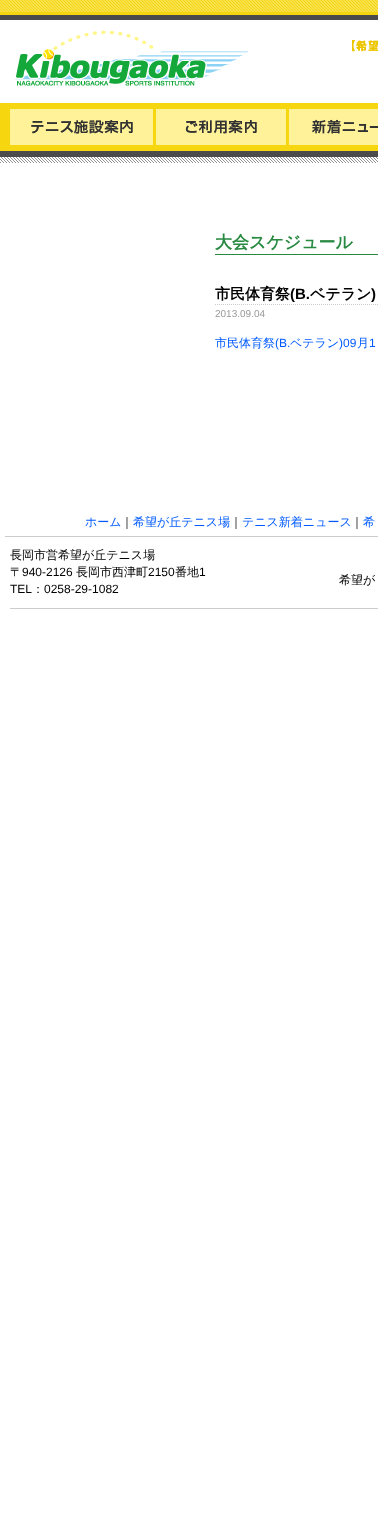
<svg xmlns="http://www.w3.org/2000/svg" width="378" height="1534">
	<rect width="100%" height="100%" fill="#FFFFFF" />
	<image x="0" y="0" width="378" height="20" href="assets/img1.png" />
	<image x="15" y="30" width="234" height="56" href="assets/img2.png" />
	<image x="352" y="40" width="26" height="12" href="assets/img3.png" />
	<rect x="0" y="103" width="378" height="48" fill="#F5D60F" />
	<image x="10" y="109" width="143" height="36" href="assets/img4.png" />
	<image x="156" y="109" width="130" height="36" href="assets/img5.png" />
	<image x="289" y="109" width="89" height="36" href="assets/img6.png" />
	<image x="0" y="151" width="378" height="12" href="assets/img7.png" />
	<rect x="215" y="254" width="163" height="1" fill="#288A41" />
	<text x="215" y="248" font-family="WenQuanYi Zen Hei" font-size="17" font-weight="700" fill="#288A41">大会スケジュール</text>
	<path d="M215 304.5H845" fill="none" stroke="#CCCCCC" stroke-dasharray="1 1" />
	<text x="215" y="299" font-family="WenQuanYi Zen Hei" font-size="15" font-weight="700" fill="#000000">市民体育祭</text>
	<text x="290" y="299" font-family="Liberation Sans" font-size="15" font-weight="700" fill="#000000">(B.</text>
	<text x="310" y="299" font-family="WenQuanYi Zen Hei" font-size="15" font-weight="700" fill="#000000">ベテラン</text>
	<text x="371" y="299" font-family="Liberation Sans" font-size="15" font-weight="700" fill="#000000">)</text>
	<text x="215" y="317" font-family="Liberation Sans" font-size="10" fill="#999999">2013.09.04</text>
	<text x="215" y="347" font-family="WenQuanYi Zen Hei" font-size="12" font-weight="500" fill="#005AFF">市民体育祭</text>
	<text x="275" y="347" font-family="Liberation Sans" font-size="12" fill="#005AFF">(B.</text>
	<text x="290" y="347" font-family="WenQuanYi Zen Hei" font-size="12" font-weight="500" fill="#005AFF">ベテラン</text>
	<text x="339" y="347" font-family="Liberation Sans" font-size="12" fill="#005AFF">)09</text>
	<text x="357" y="347" font-family="WenQuanYi Zen Hei" font-size="12" font-weight="500" fill="#005AFF">月</text>
	<text x="369" y="347" font-family="Liberation Sans" font-size="12" fill="#005AFF">1</text>
	<rect x="5" y="536" width="373" height="1" fill="#CCCCCC" />
	<text x="85" y="526" font-family="WenQuanYi Zen Hei" font-size="12" font-weight="500" fill="#005AFF">ホーム</text>
	<text x="121" y="526" font-family="WenQuanYi Zen Hei" font-size="12" font-weight="500" fill="#000000">｜</text>
	<text x="133" y="526" font-family="WenQuanYi Zen Hei" font-size="12" font-weight="500" fill="#005AFF">希望が丘テニス場</text>
	<text x="230" y="526" font-family="WenQuanYi Zen Hei" font-size="12" font-weight="500" fill="#000000">｜</text>
	<text x="242" y="526" font-family="WenQuanYi Zen Hei" font-size="12" font-weight="500" fill="#005AFF">テニス新着ニュース</text>
	<text x="351" y="526" font-family="WenQuanYi Zen Hei" font-size="12" font-weight="500" fill="#000000">｜</text>
	<text x="363" y="526" font-family="WenQuanYi Zen Hei" font-size="12" font-weight="500" fill="#005AFF">希</text>
	<g font-family="WenQuanYi Zen Hei" font-size="12" font-weight="500" fill="#000000">
		<text x="10" y="559">長岡市営希望が丘テニス場</text>
		<text x="10" y="576">〒</text>
	</g>
	<text x="22" y="576" font-family="Liberation Sans" font-size="12" fill="#000000">940-2126</text>
	<text x="76" y="576" font-family="WenQuanYi Zen Hei" font-size="12" font-weight="500" fill="#000000">長岡市西津町</text>
	<text x="148" y="576" font-family="Liberation Sans" font-size="12" fill="#000000">2150</text>
	<text x="175" y="576" font-family="WenQuanYi Zen Hei" font-size="12" font-weight="500" fill="#000000">番地</text>
	<g font-family="Liberation Sans" font-size="12" fill="#000000">
		<text x="199" y="576">1</text>
		<text x="10" y="593">TEL</text>
	</g>
	<text x="32" y="593" font-family="WenQuanYi Zen Hei" font-size="12" font-weight="500" fill="#000000">：</text>
	<text x="44" y="593" font-family="Liberation Sans" font-size="12" fill="#000000">0258-29-1082</text>
	<rect x="10" y="608" width="368" height="1" fill="#CCCCCC" />
	<text x="339" y="584" font-family="WenQuanYi Zen Hei" font-size="12" font-weight="500" fill="#000000">希望が</text>
</svg>
